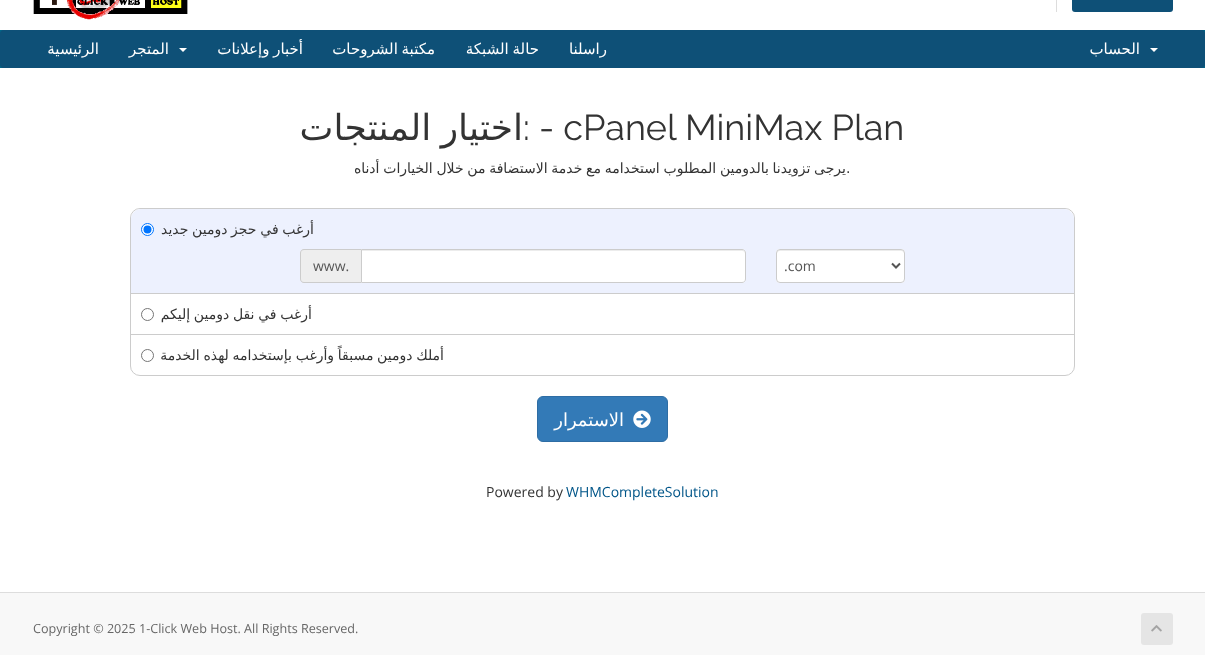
<svg xmlns="http://www.w3.org/2000/svg" width="1205" height="655">
	<rect width="100%" height="100%" fill="#F8F8F8" />
	<rect x="0" y="0" width="1205" height="30" fill="#FFFFFF" />
	<rect x="1056" y="0" width="1" height="12" fill="#DDDDDD" />
	<rect x="1072" y="-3" width="101" height="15" rx="3" fill="#0E5077" />
	<image x="33" y="0" width="155" height="20" href="assets/img1.png" />
	<rect x="0" y="30" width="1205" height="38" fill="#006687" />
	<rect x="0" y="30" width="1205" height="38" rx="4" fill="#0E5077" />
	<path d="M1150 48H1158L1154 52Z" fill="#FFFFFF" />
	<g font-family="DejaVu Sans" font-size="15" direction="rtl" fill="#FFFFFF">
		<text x="1140" y="54">الحساب</text>
		<text x="607" y="54">راسلنا</text>
		<text x="539" y="54" word-spacing="-1">حالة الشبكة</text>
		<text x="435" y="54" word-spacing="-1">مكتبة الشروحات</text>
		<text x="303" y="54" word-spacing="-1">أخبار وإعلانات</text>
	</g>
	<path d="M179 48H187L183 52Z" fill="#FFFFFF" />
	<g font-family="DejaVu Sans" font-size="15" direction="rtl" fill="#FFFFFF">
		<text x="169" y="54">المتجر</text>
		<text x="99" y="54">الرئيسية</text>
	</g>
	<rect x="0" y="68" width="1205" height="524" fill="#FFFFFF" />
	<text x="523" y="140" font-family="Raleway" font-size="36" fill="#333333">: - cPanel MiniMax Plan</text>
	<text x="523" y="140" word-spacing="-2" font-family="DejaVu Sans" font-size="36" direction="rtl" fill="#333333">اختيار المنتجات</text>
	<text x="846" y="173" word-spacing="-0.75" font-family="DejaVu Sans" font-size="14" direction="rtl" fill="#333333">يرجى تزويدنا بالدومين المطلوب استخدامه مع خدمة الاستضافة من خلال الخيارات أدناه</text>
	<text x="846" y="173" font-family="DejaVu Sans" font-size="14" fill="#333333">.</text>
	<rect x="130.5" y="208.5" width="944" height="167" rx="9.5" fill="none" stroke="#CCCCCC" />
	<path d="M141 209H1064C1069.5 209 1074 213.5 1074 219V294H131V219C131 213.5 135.5 209 141 209Z" fill="#EDF1FE" />
	<rect x="131" y="293" width="943" height="1" fill="#CCCCCC" />
	<text x="314" y="234" word-spacing="-0.75" font-family="DejaVu Sans" font-size="14" direction="rtl" fill="#333333">أرغب في حجز دومين جديد</text>
	<circle cx="147.5" cy="229.5" r="6" fill="#FFFFFF" stroke="#0075FF" />
	<circle cx="147.5" cy="229.5" r="4" fill="#0075FF" />
	<rect x="776" y="249" width="129" height="34" rx="4" fill="#FFFFFF" />
	<path d="M780 251H901C903 251 904 252 904 254V253C904 251 903 250 901 250H780C778 250 777 251 777 253V254C777 252 778 251 780 251Z" fill="#ECECEC" />
	<rect x="776.5" y="249.5" width="128" height="33" rx="3.5" fill="none" stroke="#CCCCCC" />
	<path d="M892 263.5L896 267.5L900 263.5" fill="none" stroke="#555555" stroke-width="2" />
	<text x="784" y="271" font-family="Open Sans" font-size="14" fill="#555555">.com</text>
	<path d="M361 249H742C744 249 746 251 746 253V279C746 281 744 283 742 283H361Z" fill="#FFFFFF" />
	<path d="M362 251H742C744 251 745 252 745 254V253C745 251 744 250 742 250H362Z" fill="#ECECEC" />
	<path d="M361.5 249.5H742C744 249.5 745.5 251 745.5 253V279C745.5 281 744 282.5 742 282.5H361.5Z" fill="none" stroke="#CCCCCC" />
	<path d="M304 249H361V283H304C302 283 300 281 300 279V253C300 251 302 249 304 249Z" fill="#EEEEEE" />
	<path d="M304 249H361V283H304C302 283 300 281 300 279V253C300 251 302 249 304 249ZM304 250H361V282H304C302 282 301 281 301 279V253C301 251 302 250 304 250Z" fill="#CCCCCC" fill-rule="evenodd" />
	<text x="313" y="271" font-family="Open Sans" font-size="14" fill="#555555">www.</text>
	<rect x="131" y="334" width="943" height="1" fill="#CCCCCC" />
	<text x="312" y="319" word-spacing="-0.75" font-family="DejaVu Sans" font-size="14" direction="rtl" fill="#333333">أرغب في نقل دومين إليكم</text>
	<circle cx="147.5" cy="314.5" r="6" fill="none" stroke="#767676" />
	<text x="444" y="360" word-spacing="-0.75" font-family="DejaVu Sans" font-size="14" direction="rtl" fill="#333333">أملك دومين مسبقاً وأرغب بإستخدامه لهذه الخدمة</text>
	<circle cx="147.5" cy="355.5" r="6" fill="none" stroke="#767676" />
	<rect x="537.5" y="396.5" width="130" height="45" rx="5.5" fill="#337AB7" stroke="#2E6DA4" />
	<image x="633" y="410" width="18" height="18" href="assets/img2.png" />
	<text x="624" y="426" font-family="DejaVu Sans" font-size="18" direction="rtl" fill="#FFFFFF">الاستمرار</text>
	<text x="566" y="497" font-family="Open Sans" font-size="14" fill="#005588">WHMCompleteSolution</text>
	<text x="486" y="497" font-family="Open Sans" font-size="14" fill="#333333">Powered by</text>
	<rect x="0" y="592" width="1205" height="1" fill="#DDDDDD" />
	<rect x="1141" y="613" width="32" height="32" rx="3" fill="#E5E5E5" />
	<image x="1151" y="625" width="11" height="7" href="assets/img3.png" />
	<text x="33" y="633" font-family="Open Sans" font-size="12.6" fill="#666666">Copyright © 2025 1-Click Web Host. All Rights Reserved.</text>
</svg>
